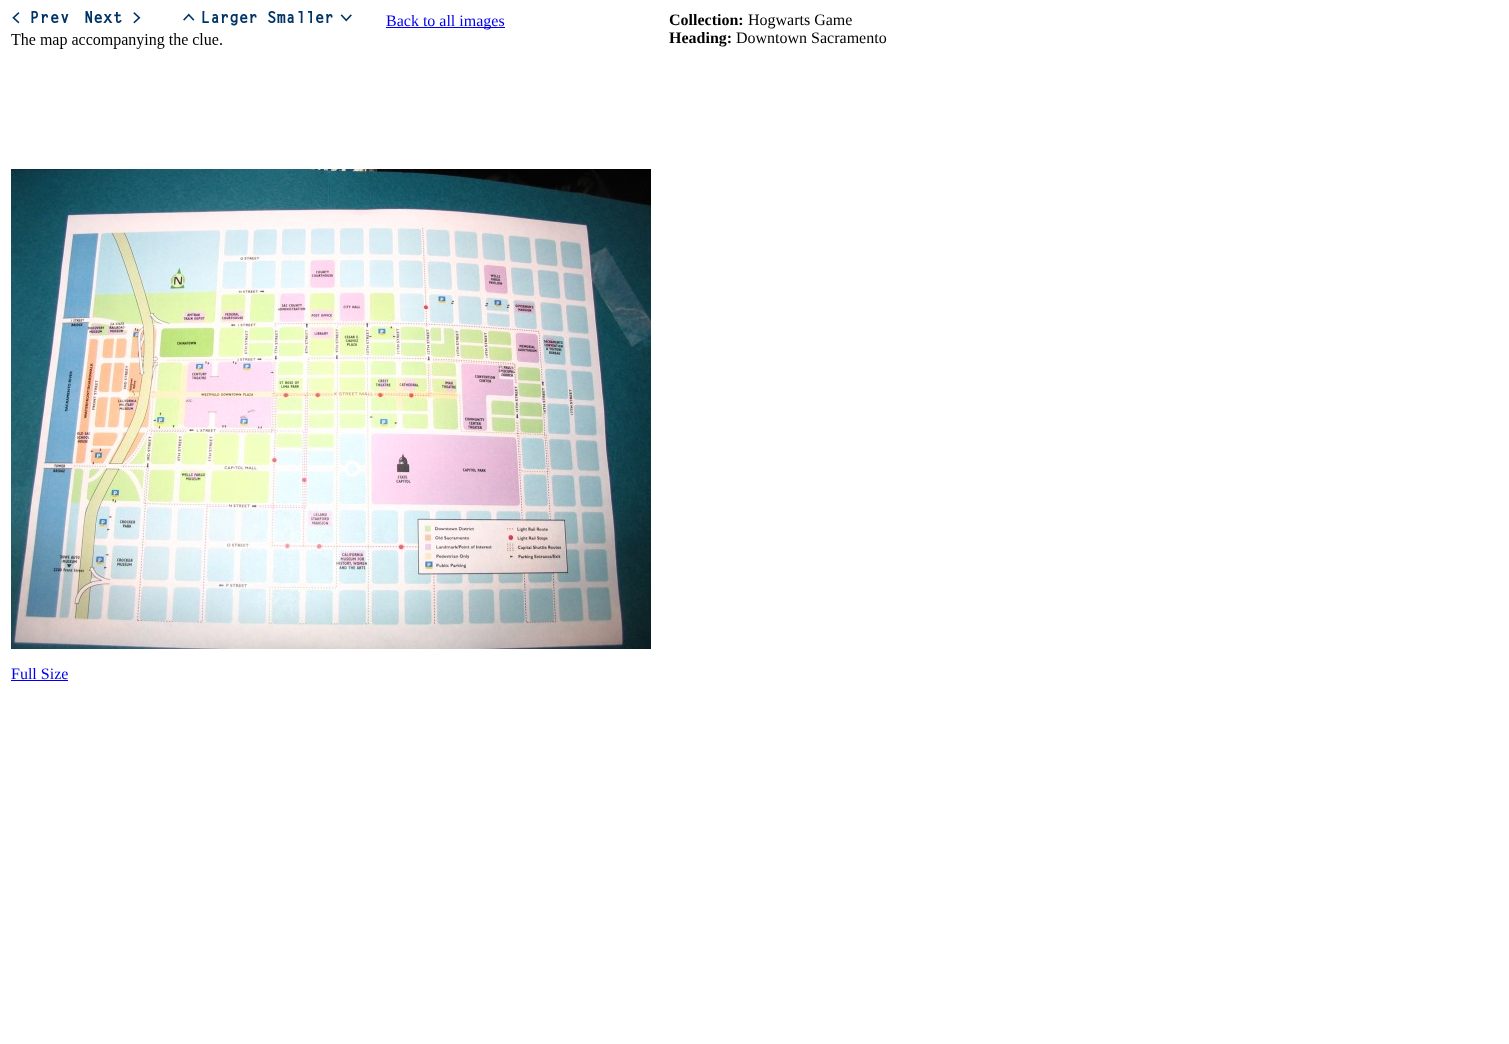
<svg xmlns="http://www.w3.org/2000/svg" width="1509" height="1044">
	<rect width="100%" height="100%" fill="#FFFFFF" />
	<image x="12" y="11" width="57" height="13" href="assets/img1.png" />
	<image x="85" y="11" width="56" height="13" href="assets/img2.png" />
	<image x="183" y="11" width="74" height="15" href="assets/img3.png" />
	<image x="268" y="11" width="84" height="12" href="assets/img4.png" />
	<rect x="386" y="27" width="119" height="1" fill="#0000EE" />
	<text x="386" y="26" font-family="Liberation Serif" font-size="16" fill="#0000EE">Back to all images</text>
	<image x="11" y="33" width="211" height="16" href="assets/img5.png" />
	<text x="669" y="25" font-family="Liberation Serif" font-size="16" font-weight="700" fill="#000000">Collection:</text>
	<text x="748" y="25" font-family="Liberation Serif" font-size="16" fill="#000000">Hogwarts Game</text>
	<text x="669" y="43" font-family="Liberation Serif" font-size="16" font-weight="700" fill="#000000">Heading:</text>
	<text x="736" y="43" font-family="Liberation Serif" font-size="16" fill="#000000">Downtown Sacramento</text>
	<image x="11" y="169" width="640" height="480" href="assets/img6.png" />
	<text x="11" y="679" font-family="Liberation Serif" font-size="16" fill="#0000EE">Full Size</text>
	<rect x="11" y="680" width="57" height="1" fill="#0000EE" />
</svg>
